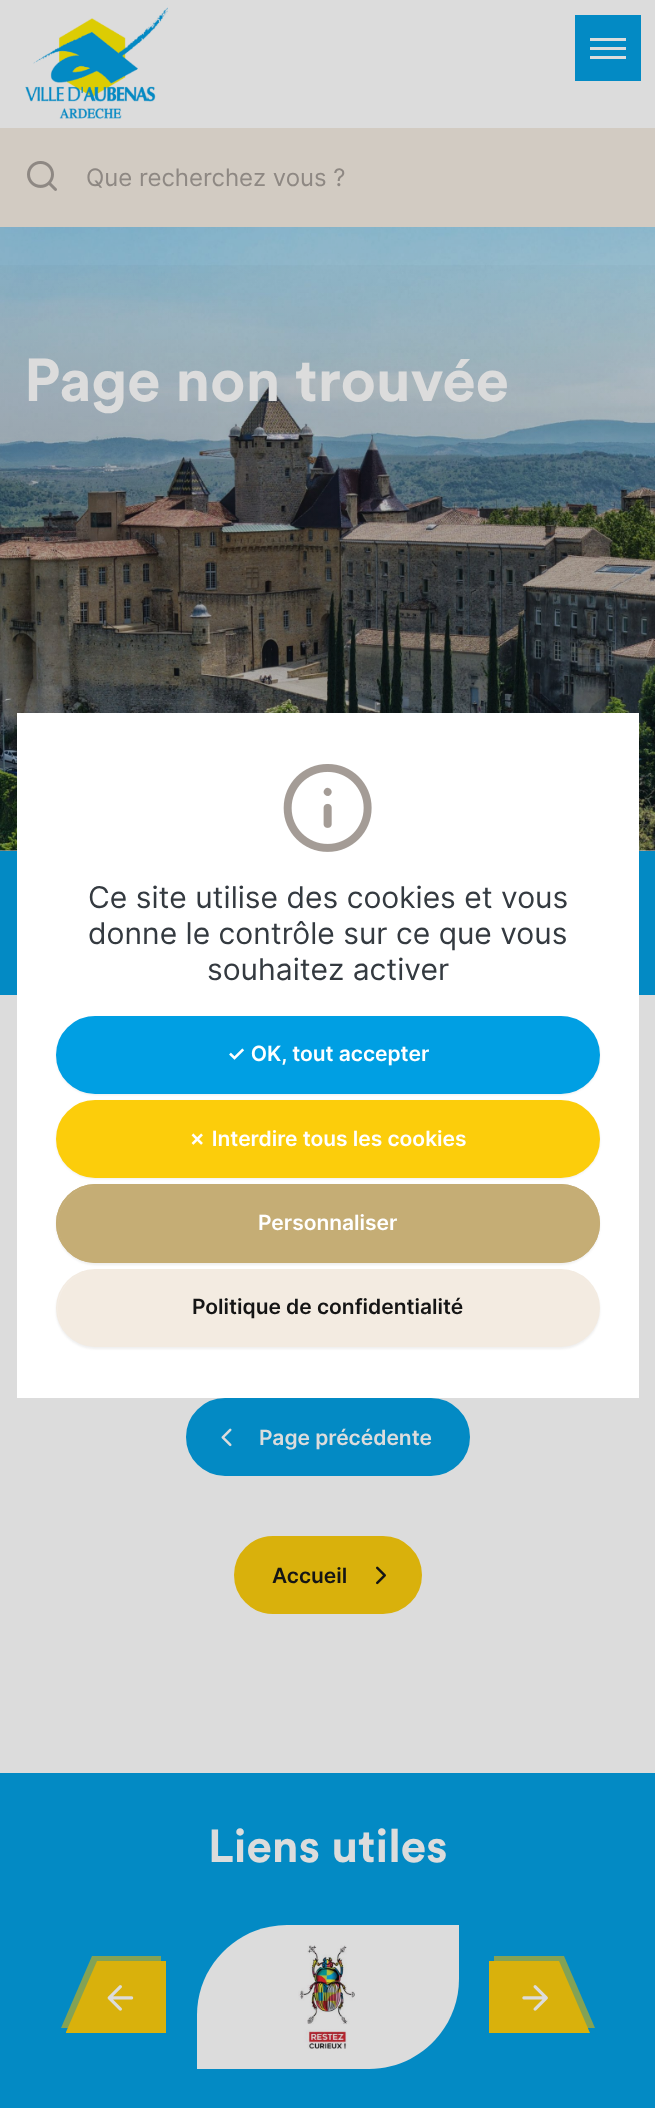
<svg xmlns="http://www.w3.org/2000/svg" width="655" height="2108">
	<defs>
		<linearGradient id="g1" gradientUnits="userSpaceOnUse" x1="328" y1="227" x2="328" y2="995"><stop offset="0" stop-color="#0C0C0C" stop-opacity="0" /><stop offset="0.5" stop-color="#0C0C0C" stop-opacity="0.22" /><stop offset="1" stop-color="#0C0C0C" stop-opacity="0" /></linearGradient>
	</defs>
	<rect width="100%" height="100%" fill="#DCDCDC" />
	<image x="25" y="7" width="143" height="112" href="assets/img1.png" />
	<rect x="575" y="15" width="66" height="66" fill="#038AC4" />
	<rect x="590" y="38" width="36" height="3" fill="#DCDCDC" />
	<rect x="590" y="47" width="36" height="3" fill="#DCDCDC" />
	<rect x="590" y="56" width="36" height="3" fill="#DCDCDC" />
	<rect x="0" y="128" width="655" height="99" fill="#D2CBC2" />
	<image x="27" y="161" width="30" height="30" href="assets/img2.png" />
	<text x="86" y="186" font-family="Inter" font-size="24" fill="#8E8883">Que recherchez vous ?</text>
	<image x="0" y="227" width="655" height="624" href="assets/img3.png" />
	<rect x="0" y="265" width="655" height="586" fill="url(#g1)" />
	<text x="24" y="401" font-family="Circular" font-size="60" font-weight="700" fill="#DCDCDC">Page non trouvée</text>
	<rect x="0" y="851" width="655" height="144" fill="#038AC4" />
	<rect x="187" y="1399" width="282" height="76" rx="38" fill="#038AC4" stroke="#038AC4" stroke-width="2" />
	<image x="221" y="1428" width="11" height="19" href="assets/img4.png" />
	<text x="259" y="1445" font-family="Inter" font-size="21" font-weight="600" fill="#DCDCDC">Page précédente</text>
	<rect x="235" y="1537" width="186" height="76" rx="38" fill="#D9B10C" stroke="#D9B10C" stroke-width="2" />
	<text x="272" y="1583" font-family="Inter" font-size="21" font-weight="600" fill="#151515">Accueil</text>
	<image x="376" y="1566" width="10" height="19" href="assets/img5.png" />
	<rect x="0" y="1773" width="655" height="335" fill="#038AC4" />
	<text x="208" y="1862" font-family="Circular" font-size="46" font-weight="700" fill="#DCDCDC">Liens utiles</text>
	<path d="M287 1925H459V1979C459 2028.5 418.5 2069 369 2069H197V2015C197 1965.5 237.5 1925 287 1925Z" fill="#DCDCDC" />
	<image x="298" y="1945" width="57" height="104" href="assets/img6.png" />
	<path d="M92 1956L61 2028H161V1956Z" fill="#83A255" />
	<path d="M66 2032L97 1961H166V2033H66Z" fill="#D9B10C" />
	<image x="107" y="1985" width="27" height="26" href="assets/img7.png" />
	<path d="M494 1956V2028H595L564 1956Z" fill="#83A255" />
	<path d="M590 2033H489V1961H559Z" fill="#D9B10C" />
	<image x="522" y="1985" width="26" height="26" href="assets/img8.png" />
	<rect x="17" y="713" width="622" height="685" fill="#FFFFFF" />
	<image x="283" y="764" width="89" height="88" href="assets/img9.png" />
	<g font-family="Inter" font-size="30" fill="#343A40">
		<text x="88" y="908">Ce site utilise des cookies et vous</text>
		<text x="88" y="944">donne le contrôle sur ce que vous</text>
		<text x="207" y="980">souhaitez activer</text>
	</g>
	<rect x="56" y="1017" width="544" height="78" rx="39" fill="#141414" fill-opacity="0.07" filter="blur(1px)" />
	<rect x="57" y="1017" width="542" height="76" rx="38" fill="#009FE3" stroke="#009FE3" stroke-width="2" />
	<text x="227" y="1061" font-family="Inter" font-size="21" font-weight="600" fill="#FFFFFF">✓ OK, tout accepter</text>
	<rect x="56" y="1101" width="544" height="78" rx="39" fill="#141414" fill-opacity="0.07" filter="blur(1px)" />
	<rect x="57" y="1101" width="542" height="76" rx="38" fill="#FCCD0B" stroke="#FCCD0B" stroke-width="2" />
	<text x="188" y="1146" font-family="Inter" font-size="21" font-weight="600" fill="#FFFFFF">✗ Interdire tous les cookies</text>
	<rect x="56" y="1185" width="544" height="80" rx="40" fill="#141414" fill-opacity="0.07" filter="blur(1px)" />
	<rect x="56" y="1184" width="544" height="79" rx="39.5" fill="#C5AD75" />
	<path d="M96 1186H561C582 1186 599 1203 599 1224C599 1202 582 1185 560 1185H96C74 1185 57 1202 57 1224C57 1245 74 1262 96 1262C75 1262 58 1245 58 1224C58 1203 75 1186 96 1186Z" fill="#CEB98A" />
	<rect x="57" y="1185" width="542" height="77" rx="38.5" fill="none" stroke="#C5AD75" stroke-width="2" />
	<text x="258" y="1230" font-family="Inter" font-size="21" font-weight="600" fill="#FFFFFF">Personnaliser</text>
	<rect x="56" y="1271" width="544" height="78" rx="39" fill="#141414" fill-opacity="0.07" filter="blur(1px)" />
	<rect x="56" y="1269" width="544" height="78" rx="39" fill="#F3EBE1" />
	<path d="M94 1271C87 1271 80 1273 74 1277C43 1298 58 1346 95 1346C74 1346 58 1330 58 1309C58 1288 74 1271 95 1271ZM599 1309C599 1294 591 1281 578 1275C590 1281 599 1294 599 1309Z" fill="#F5EEE6" fill-rule="evenodd" />
	<text x="192" y="1314" font-family="Inter" font-size="21" font-weight="600" fill="#151515">Politique de confidentialité</text>
</svg>
